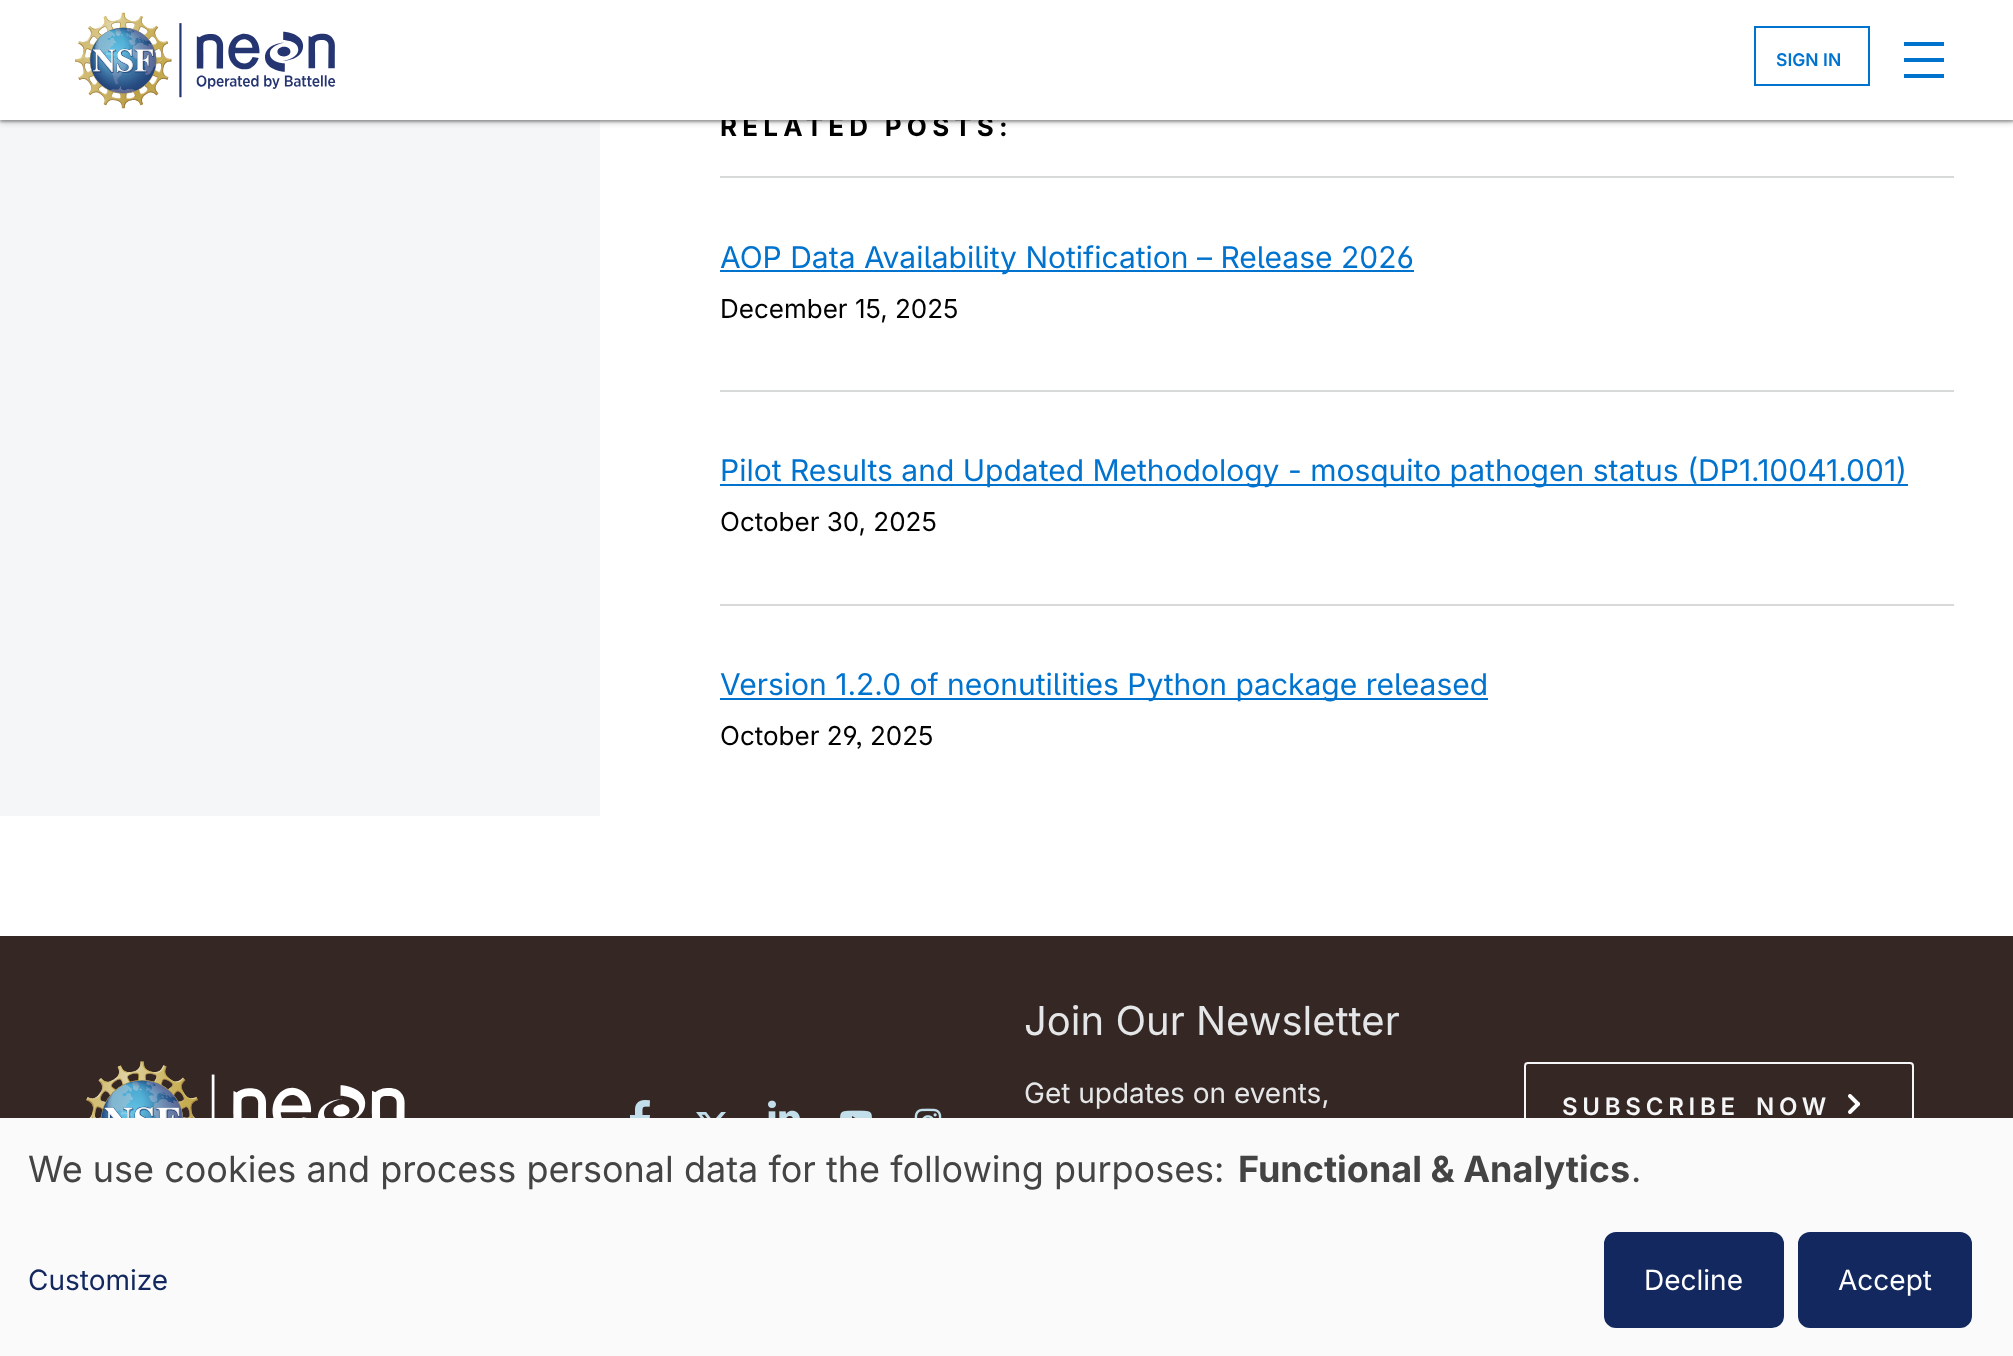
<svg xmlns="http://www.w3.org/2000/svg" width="2013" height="1356">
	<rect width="100%" height="100%" fill="#FFFFFF" />
	<rect x="0" y="120" width="600" height="696" fill="#F5F6F7" />
	<rect x="0" y="2" width="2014" height="120" fill="#000000" fill-opacity="0.25" filter="blur(1px)" />
	<rect x="0" y="2" width="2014" height="120" fill="#000000" fill-opacity="0.25" filter="blur(3px)" />
	<text x="720" y="136" font-family="Inter" font-size="26" font-weight="700" letter-spacing="5.25" fill="#000000">RELATED POSTS:</text>
	<rect x="0" y="0" width="2013" height="120" fill="#FFFFFF" />
	<image x="75" y="12" width="261" height="97" href="assets/img1.png" />
	<rect x="1755" y="27" width="114" height="58" fill="none" stroke="#0073CF" stroke-width="2" />
	<text x="1776" y="66" font-family="Inter" font-size="17.5" font-weight="600" fill="#0073CF">SIGN IN</text>
	<path d="M1904 42H1944V46H1904ZM1904 74H1944V78H1904ZM1904 58H1944V62H1904Z" fill="#0073CF" />
	<rect x="720" y="176" width="1234" height="2" fill="#D7D9D9" />
	<rect x="720" y="270" width="694" height="2" fill="#0073CF" />
	<text x="720" y="268" font-family="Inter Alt" font-size="30" fill="#0073CF">AOP Data Availability Notification – Release 2026</text>
	<text x="720" y="318" font-family="Inter" font-size="26" fill="#000000">December 15, 2025</text>
	<rect x="720" y="390" width="1234" height="2" fill="#D7D9D9" />
	<rect x="720" y="484" width="1188" height="2" fill="#0073CF" />
	<text x="720" y="481" font-family="Inter" font-size="30" fill="#0073CF">Pilot Results and Updated Methodology - mosquito pathogen status (DP1.10041.001)</text>
	<text x="720" y="531" font-family="Inter" font-size="26" fill="#000000">October 30, 2025</text>
	<rect x="720" y="604" width="1234" height="2" fill="#D7D9D9" />
	<rect x="720" y="698" width="768" height="2" fill="#0073CF" />
	<text x="720" y="695" font-family="Inter Alt" font-size="30" fill="#0073CF">Version 1.2.0 of neonutilities Python package released</text>
	<text x="720" y="745" font-family="Inter Alt" font-size="26" fill="#000000">October 29, 2025</text>
	<rect x="0" y="936" width="2013" height="182" fill="#352723" />
	<image x="86" y="1061" width="319" height="57" href="assets/img2.png" />
	<image x="630" y="1100" width="20" height="18" href="assets/img3.png" />
	<image x="696" y="1112" width="30" height="6" href="assets/img4.png" />
	<image x="768" y="1100" width="32" height="18" href="assets/img5.png" />
	<image x="840" y="1110" width="32" height="8" href="assets/img6.png" />
	<image x="914" y="1108" width="28" height="10" href="assets/img7.png" />
	<text x="1024" y="1035" font-family="Inter" font-size="40" fill="#E4E6E7">Join Our Newsletter</text>
	<text x="1024" y="1103" font-family="Inter" font-size="28" fill="#E4E6E7">Get updates on events,</text>
	<rect x="1525" y="1063" width="388" height="86" rx="3" fill="none" stroke="#F5F6F7" stroke-width="2" />
	<text x="1562" y="1115" font-family="Inter" font-size="24" font-weight="600" letter-spacing="4.75" fill="#F5F6F7">SUBSCRIBE</text>
	<text x="1756" y="1115" font-family="Inter" font-size="24" font-weight="600" letter-spacing="4.75" fill="#F5F6F7">NOW</text>
	<image x="1848" y="1094" width="12" height="20" href="assets/img8.png" />
	<rect x="0" y="1118" width="2013" height="238" fill="#FAFAFA" />
	<text x="28" y="1182" font-family="Inter" font-size="36" fill="#444444">We use cookies and process personal data for the following purposes:</text>
	<text x="1238" y="1182" font-family="Inter" font-size="36" font-weight="700" fill="#444444">Functional &amp; Analytics</text>
	<text x="1631" y="1182" font-family="Inter" font-size="36" fill="#444444">.</text>
	<text x="28" y="1290" font-family="Inter" font-size="28" fill="#12285F">Customize</text>
	<rect x="1607" y="1235" width="174" height="90" rx="9" fill="#12285F" stroke="#12285F" stroke-width="6" />
	<text x="1644" y="1290" font-family="Inter" font-size="28" fill="#FFFFFF">Decline</text>
	<rect x="1801" y="1235" width="168" height="90" rx="9" fill="#12285F" stroke="#12285F" stroke-width="6" />
	<text x="1838" y="1290" font-family="Inter" font-size="28" fill="#FFFFFF">Accept</text>
</svg>
